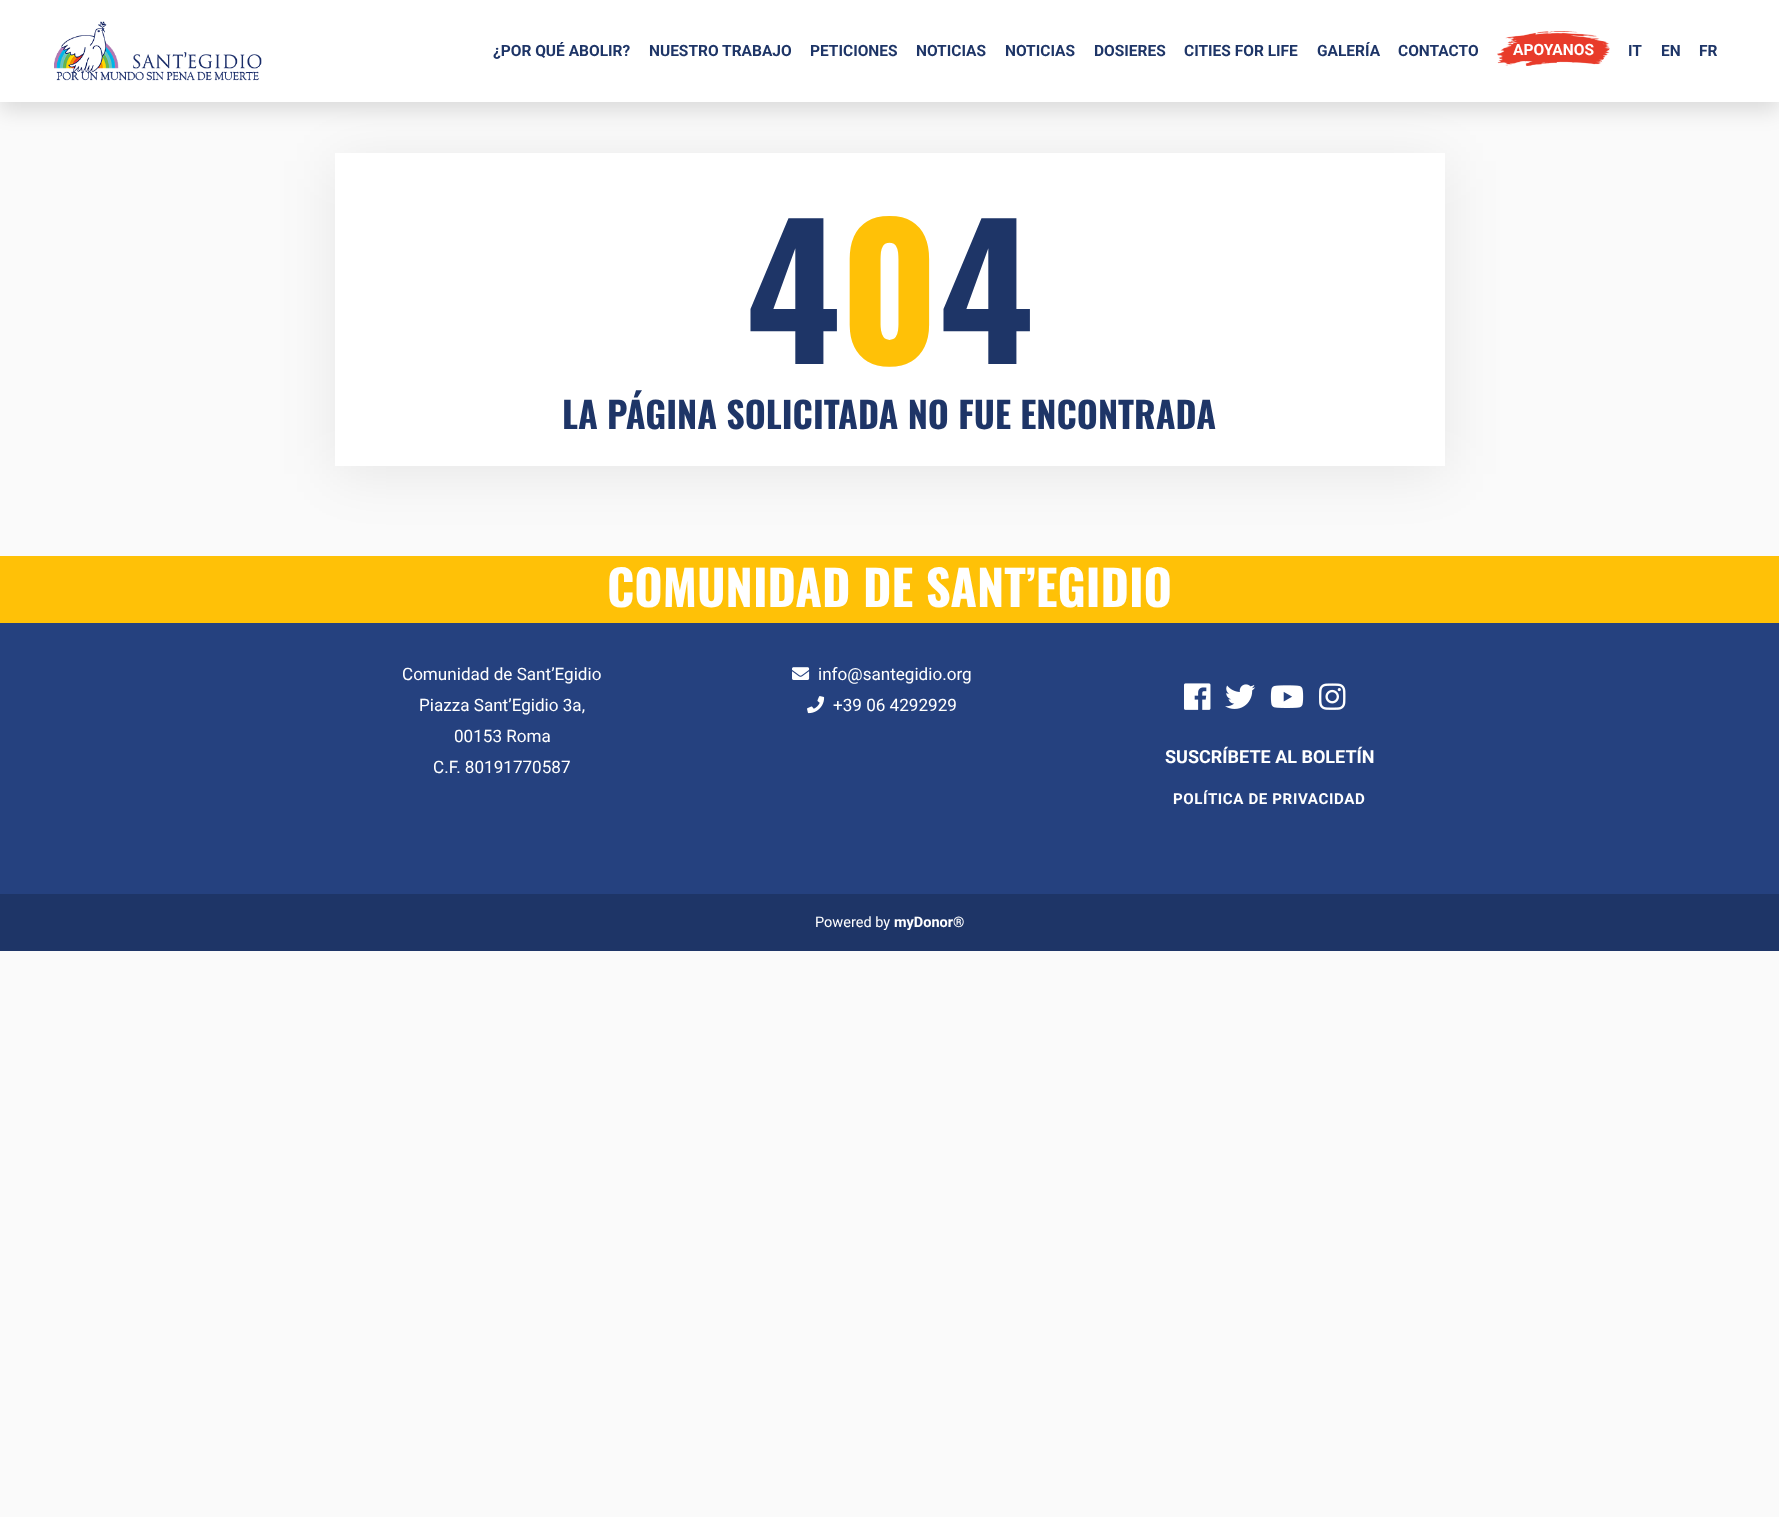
<svg xmlns="http://www.w3.org/2000/svg" width="1779" height="1517">
	<rect width="100%" height="100%" fill="#FAFAFA" />
	<rect x="0" y="8" width="1779" height="102" fill="#000000" fill-opacity="0.13" filter="blur(10.5px)" />
	<rect x="0" y="556" width="1779" height="67" fill="#FFC107" />
	<rect x="335" y="161" width="1110" height="313" fill="#000000" fill-opacity="0.08" filter="blur(27.5px)" />
	<rect x="0" y="0" width="1779" height="102" fill="#FFFFFF" />
	<image x="54" y="21" width="208" height="60" href="assets/img1.png" />
	<g font-family="Roboto" font-size="15.5" font-weight="700" fill="#1E3567">
		<text x="493" y="56">¿POR QUÉ ABOLIR?</text>
		<text x="649" y="56">NUESTRO TRABAJO</text>
		<text x="810" y="56">PETICIONES</text>
		<text x="916" y="56">NOTICIAS</text>
		<text x="1005" y="56">NOTICIAS</text>
		<text x="1094" y="56">DOSIERES</text>
		<text x="1184" y="56">CITIES FOR LIFE</text>
		<text x="1317" y="56">GALERÍA</text>
		<text x="1398" y="56">CONTACTO</text>
	</g>
	<image x="1497" y="31" width="113" height="35" href="assets/img2.png" />
	<text x="1513" y="55" font-family="Roboto" font-size="15.5" font-weight="700" fill="#FFFFFF">APOYANOS</text>
	<g font-family="Roboto" font-size="15.5" font-weight="700" fill="#1E3567">
		<text x="1628" y="56">IT</text>
		<text x="1661" y="56">EN</text>
		<text x="1699" y="56">FR</text>
	</g>
	<rect x="335" y="153" width="1110" height="313" fill="#FFFFFF" />
	<text x="746" y="364" font-family="Oswald" font-size="180" font-weight="700" fill="#1E3567">4</text>
	<text x="840" y="364" font-family="Oswald" font-size="180" font-weight="700" fill="#FFC107">0</text>
	<text x="939" y="364" font-family="Oswald" font-size="180" font-weight="700" fill="#1E3567">4</text>
	<text x="562" y="429" font-family="Oswald" font-size="36" font-weight="700" fill="#1E3567">LA PÁGINA SOLICITADA NO FUE ENCONTRADA</text>
	<text x="607" y="607" font-family="Oswald" font-size="48.6" font-weight="700" fill="#FFFFFF">COMUNIDAD DE SANT’EGIDIO</text>
	<rect x="0" y="623" width="1779" height="271" fill="#25417F" />
	<g font-family="Roboto" font-size="17.1" fill="#FFFFFF">
		<text x="402" y="680">Comunidad de Sant’Egidio</text>
		<text x="419" y="711">Piazza Sant’Egidio 3a,</text>
		<text x="454" y="742">00153 Roma</text>
		<text x="433" y="773">C.F. 80191770587</text>
	</g>
	<image x="792" y="667" width="18" height="13" href="assets/img3.png" />
	<text x="818" y="680" font-family="Roboto" font-size="17.1" fill="#FFFFFF">info@santegidio.org</text>
	<image x="807" y="696" width="18" height="18" href="assets/img4.png" />
	<text x="833" y="711" font-family="Roboto" font-size="17.1" fill="#FFFFFF">+39 06 4292929</text>
	<image x="1184" y="683" width="27" height="27" href="assets/img5.png" />
	<image x="1225" y="684" width="31" height="25" href="assets/img6.png" />
	<image x="1270" y="685" width="34" height="23" href="assets/img7.png" />
	<image x="1319" y="683" width="27" height="27" href="assets/img8.png" />
	<text x="1165" y="763" font-family="Roboto" font-size="18" font-weight="700" fill="#FFFFFF">SUSCRÍBETE AL BOLETÍN</text>
	<text x="1173" y="804" font-family="Roboto" font-size="15.1" font-weight="700" letter-spacing="0.6" fill="#FFFFFF">POLÍTICA DE PRIVACIDAD</text>
	<rect x="0" y="894" width="1779" height="57" fill="#1E3567" />
	<text x="815" y="927" font-family="Roboto" font-size="14.5" fill="#FFFFFF">Powered by</text>
	<text x="894" y="927" font-family="Roboto" font-size="14.5" font-weight="700" fill="#FFFFFF">myDonor®</text>
</svg>
